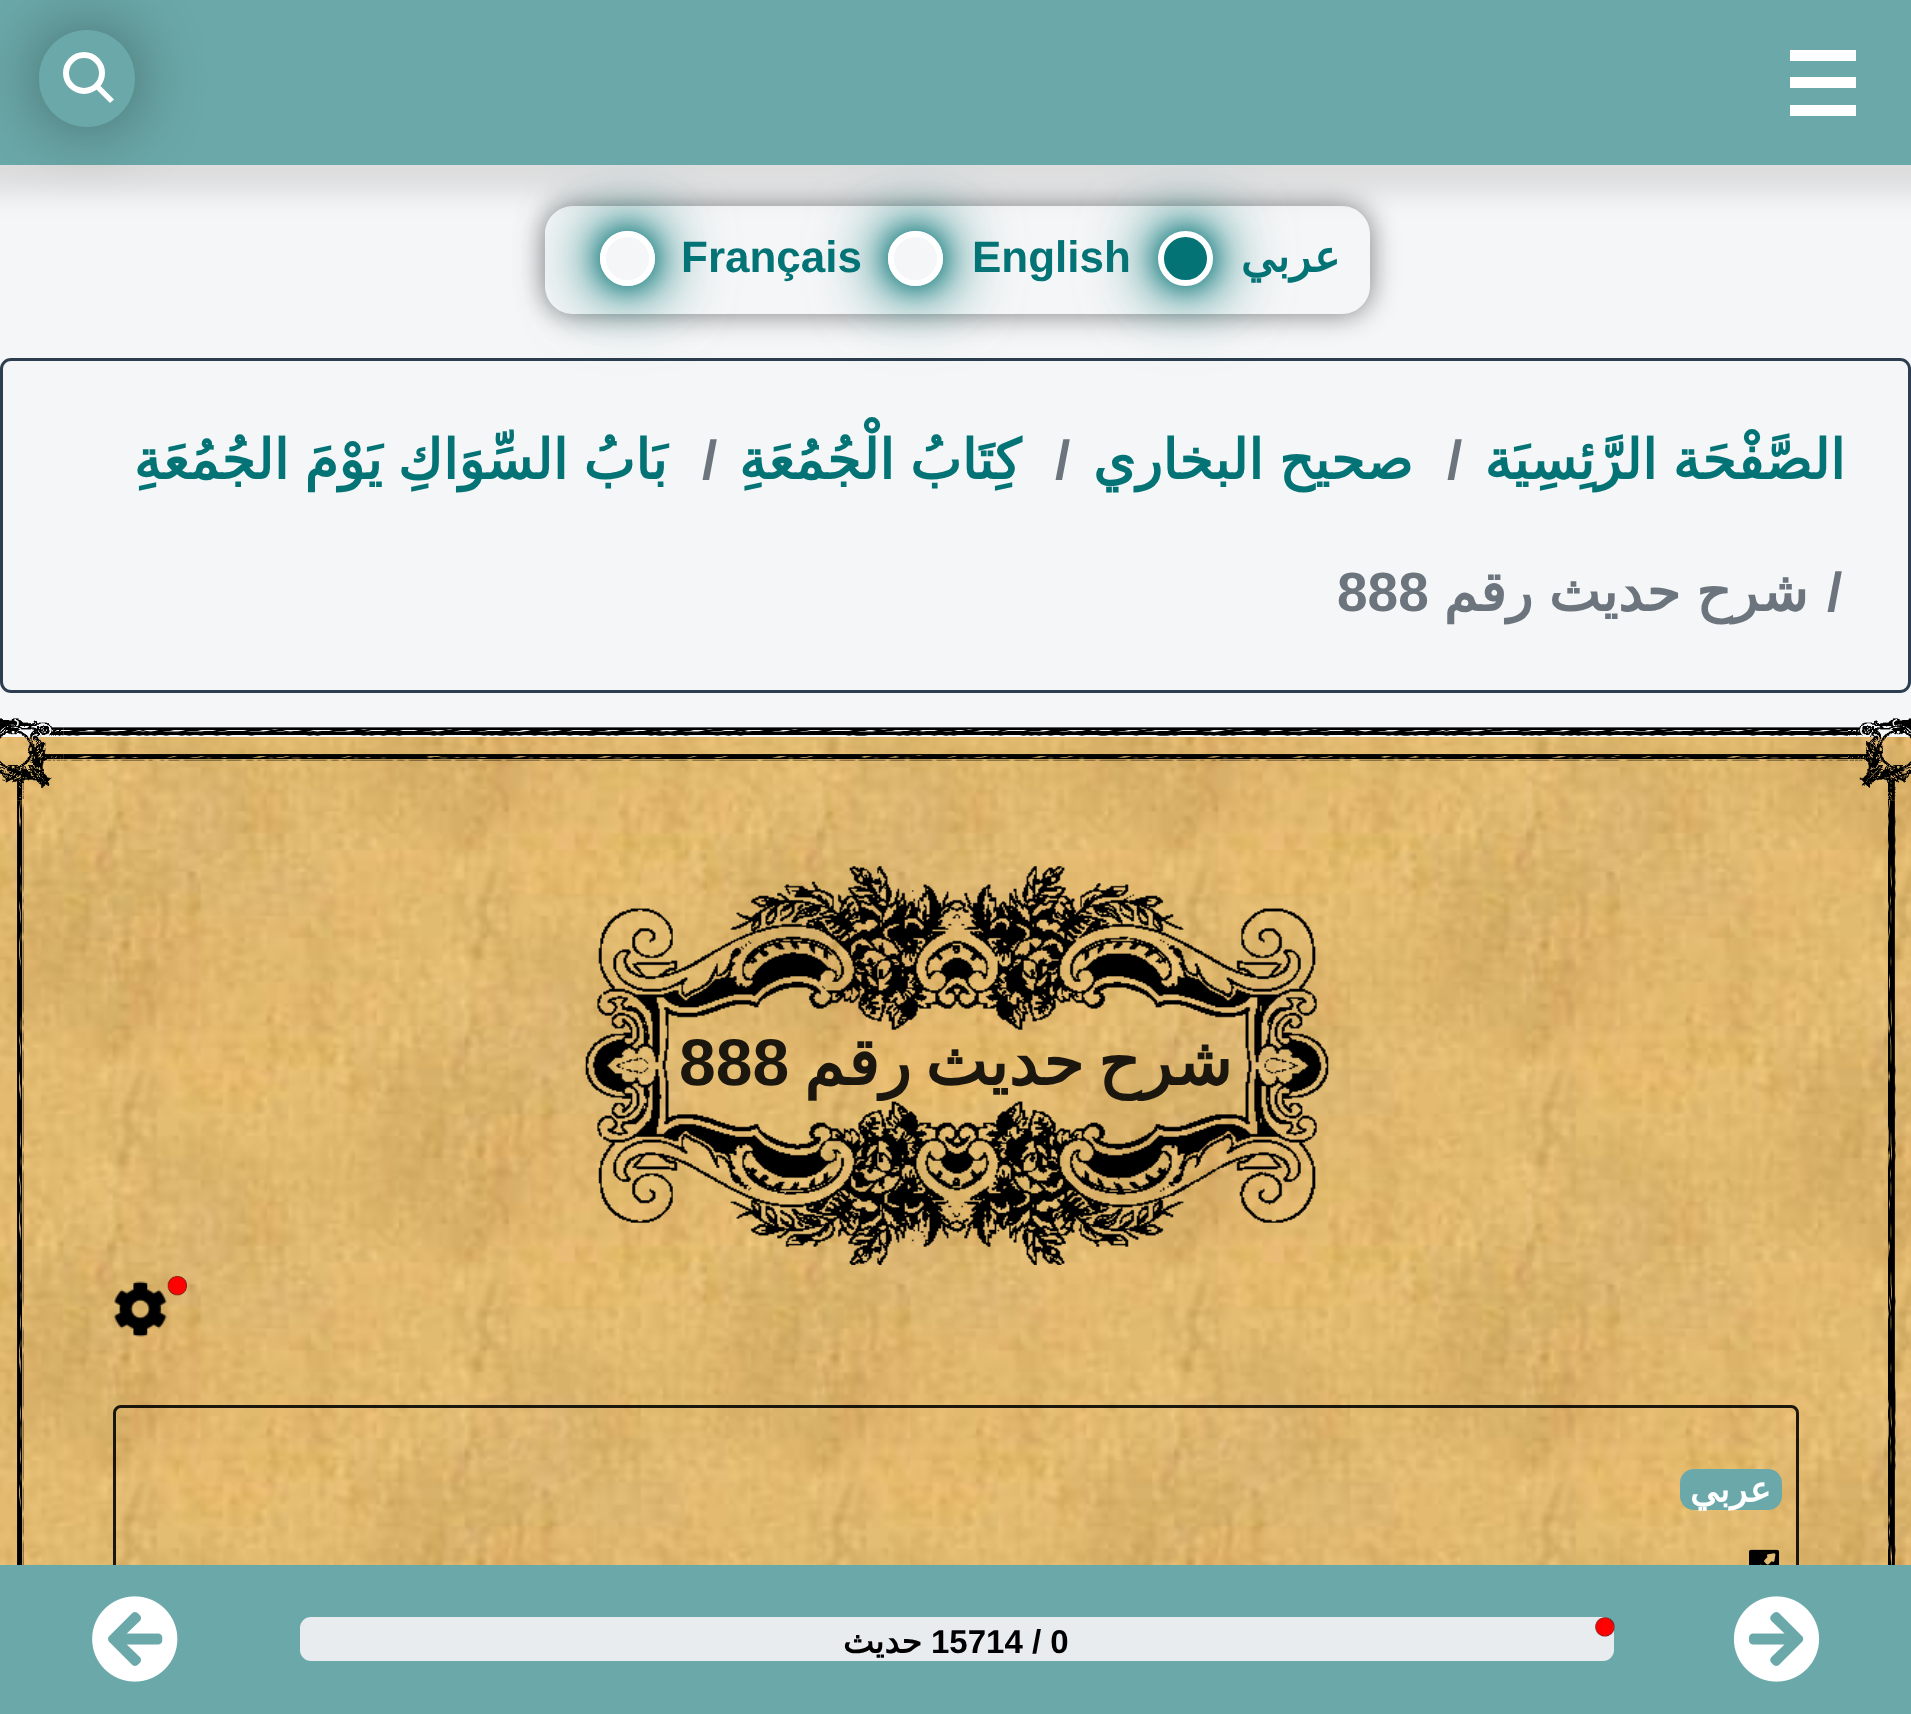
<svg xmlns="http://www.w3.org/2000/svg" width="1911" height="1714">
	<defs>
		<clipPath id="clip1"><path d="M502 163H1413V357H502ZM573 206H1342C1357.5 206 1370 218.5 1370 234V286C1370 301.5 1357.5 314 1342 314H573C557.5 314 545 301.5 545 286V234C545 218.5 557.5 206 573 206Z" clip-rule="evenodd" /></clipPath>
		<clipPath id="clip2"><path d="M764 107H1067V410H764ZM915.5 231C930.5 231 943 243.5 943 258.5C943 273.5 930.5 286 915.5 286C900.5 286 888 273.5 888 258.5C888 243.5 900.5 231 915.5 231Z" clip-rule="evenodd" /></clipPath>
		<clipPath id="clip3"><path d="M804 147H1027V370H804ZM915.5 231C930.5 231 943 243.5 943 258.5C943 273.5 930.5 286 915.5 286C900.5 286 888 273.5 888 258.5C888 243.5 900.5 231 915.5 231Z" clip-rule="evenodd" /></clipPath>
		<clipPath id="clip4"><path d="M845 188H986V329H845ZM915.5 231C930.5 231 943 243.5 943 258.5C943 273.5 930.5 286 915.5 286C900.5 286 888 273.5 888 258.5C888 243.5 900.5 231 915.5 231Z" clip-rule="evenodd" /></clipPath>
		<clipPath id="clip5"><path d="M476 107H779V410H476ZM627.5 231C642.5 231 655 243.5 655 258.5C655 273.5 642.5 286 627.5 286C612.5 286 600 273.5 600 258.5C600 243.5 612.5 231 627.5 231Z" clip-rule="evenodd" /></clipPath>
		<clipPath id="clip6"><path d="M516 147H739V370H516ZM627.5 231C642.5 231 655 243.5 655 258.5C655 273.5 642.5 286 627.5 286C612.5 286 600 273.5 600 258.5C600 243.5 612.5 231 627.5 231Z" clip-rule="evenodd" /></clipPath>
		<clipPath id="clip7"><path d="M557 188H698V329H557ZM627.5 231C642.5 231 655 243.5 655 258.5C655 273.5 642.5 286 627.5 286C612.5 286 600 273.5 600 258.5C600 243.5 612.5 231 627.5 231Z" clip-rule="evenodd" /></clipPath>
		<clipPath id="clip8"><path d="M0 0H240V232H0ZM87 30C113.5 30 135 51.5 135 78V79C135 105.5 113.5 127 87 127C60.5 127 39 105.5 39 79V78C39 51.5 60.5 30 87 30Z" clip-rule="evenodd" /></clipPath>
	</defs>
	<rect width="100%" height="100%" fill="#F5F6F7" />
	<g clip-path="url(#clip1)">
		<rect x="545" y="206" width="825" height="108" rx="28" fill="#000000" fill-opacity="0.5" filter="blur(14px)" />
	</g>
	<rect x="1.5" y="359.5" width="1908" height="332" rx="9.5" fill="none" stroke="#2C3E50" stroke-width="3" />
	<rect x="1158" y="231" width="55" height="55" rx="27.5" fill="#037375" filter="blur(41px)" />
	<rect x="1158" y="231" width="55" height="55" rx="27.5" fill="#037375" filter="blur(27.5px)" />
	<rect x="1158" y="231" width="55" height="55" rx="27.5" fill="#037375" filter="blur(14px)" />
	<circle cx="1185.5" cy="258.5" r="24.5" fill="#037375" stroke="#FFFFFF" stroke-width="6" />
	<g clip-path="url(#clip2)">
		<rect x="888" y="231" width="55" height="55" rx="27.5" fill="#037375" filter="blur(41px)" />
	</g>
	<g clip-path="url(#clip3)">
		<rect x="888" y="231" width="55" height="55" rx="27.5" fill="#037375" filter="blur(27.5px)" />
	</g>
	<g clip-path="url(#clip4)">
		<rect x="888" y="231" width="55" height="55" rx="27.5" fill="#037375" filter="blur(14px)" />
	</g>
	<circle cx="915.5" cy="258.5" r="24.5" fill="none" stroke="#FFFFFF" stroke-width="6" />
	<g clip-path="url(#clip5)">
		<rect x="600" y="231" width="55" height="55" rx="27.5" fill="#037375" filter="blur(41px)" />
	</g>
	<g clip-path="url(#clip6)">
		<rect x="600" y="231" width="55" height="55" rx="27.5" fill="#037375" filter="blur(27.5px)" />
	</g>
	<g clip-path="url(#clip7)">
		<rect x="600" y="231" width="55" height="55" rx="27.5" fill="#037375" filter="blur(14px)" />
	</g>
	<circle cx="627.5" cy="258.5" r="24.5" fill="none" stroke="#FFFFFF" stroke-width="6" />
	<rect x="-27" y="-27" width="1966" height="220" fill="#000000" fill-opacity="0.1" filter="blur(14px)" />
	<rect x="0" y="0" width="1911" height="165" fill="#6BA8A9" />
	<rect x="1790" y="50" width="66" height="11" fill="#FFFFFF" />
	<rect x="1790" y="105" width="66" height="11" fill="#FFFFFF" />
	<rect x="1790" y="77" width="66" height="11" fill="#FFFFFF" />
	<g clip-path="url(#clip8)">
		<rect x="39" y="30" width="96" height="97" rx="48" fill="#000000" fill-opacity="0.4" filter="blur(34.5px)" />
	</g>
	<path d="M98.5 84L114 99.5L110 103L94.5 87.5Z" fill="#FFFFFF" />
	<circle cx="84" cy="73" r="18" fill="none" stroke="#FFFFFF" stroke-width="6" />
	<text x="1340" y="272" font-family="DejaVu Sans" font-size="44" font-weight="700" direction="rtl" fill="#037375">عربي</text>
	<g font-family="Liberation Sans" font-size="44" font-weight="700" fill="#037375">
		<text x="972" y="272">English</text>
		<text x="681" y="272">Français</text>
	</g>
	<text x="1845" y="479" word-spacing="-2" font-family="DejaVu Sans" font-size="55" font-weight="700" direction="rtl" fill="#037375">الصَّفْحَة الرَّئِسِيَة</text>
	<text x="1447" y="479" font-family="Liberation Sans" font-size="55" font-weight="700" fill="#6C757D">/</text>
	<text x="1413" y="479" word-spacing="-2" font-family="DejaVu Sans" font-size="55" font-weight="700" direction="rtl" fill="#037375">صحيح البخاري</text>
	<text x="1055" y="479" font-family="Liberation Sans" font-size="55" font-weight="700" fill="#6C757D">/</text>
	<text x="1021" y="479" word-spacing="-2" font-family="DejaVu Sans" font-size="55" font-weight="700" direction="rtl" fill="#037375">كِتَابُ الْجُمُعَةِ</text>
	<text x="702" y="479" font-family="Liberation Sans" font-size="55" font-weight="700" fill="#6C757D">/</text>
	<text x="667" y="479" word-spacing="-2" font-family="DejaVu Sans" font-size="55" font-weight="700" direction="rtl" fill="#037375">بَابُ السِّوَاكِ يَوْمَ الجُمُعَةِ</text>
	<text x="1827" y="611" font-family="Liberation Sans" font-size="55" font-weight="700" fill="#6C757D">/</text>
	<text x="1808" y="611" word-spacing="-2" font-family="DejaVu Sans" font-size="55" font-weight="700" direction="rtl" fill="#6C757D">شرح حديث رقم</text>
	<text x="1337" y="611" font-family="Liberation Sans" font-size="55" font-weight="700" fill="#6C757D">888</text>
	<image x="0" y="737" width="1911" height="828" href="assets/img1.png" />
	<image x="0" y="718" width="1911" height="847" href="assets/img2.png" />
	<image x="585" y="866" width="744" height="399" href="assets/img3.png" />
	<text x="1232" y="1085" word-spacing="-7" font-family="DejaVu Sans" font-size="66" font-weight="700" direction="rtl" fill="#1B160E">شرح حديث رقم</text>
	<text x="679" y="1085" font-family="Liberation Sans" font-size="66" font-weight="700" fill="#1B160E">888</text>
	<image x="167" y="1276" width="20" height="20" href="assets/img4.png" />
	<image x="114" y="1281" width="53" height="56" href="assets/img5.png" />
	<rect x="114.5" y="1406.5" width="1683" height="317" rx="6.5" fill="none" stroke="#000000" stroke-opacity="0.88" stroke-width="3" />
	<rect x="1680" y="1469" width="102" height="41" rx="14" fill="#6BA8A9" />
	<text x="1771" y="1502" font-family="DejaVu Sans" font-size="36" font-weight="700" direction="rtl" fill="#FFFFFF">عربي</text>
	<image x="1749" y="1549" width="31" height="16" href="assets/img6.png" />
	<rect x="0" y="1565" width="1911" height="149" fill="#6BA8A9" />
	<image x="1733" y="1596" width="87" height="86" href="assets/img7.png" />
	<rect x="300" y="1617" width="1314" height="44" rx="11" fill="#E9ECEF" />
	<image x="1595" y="1617" width="20" height="20" href="assets/img8.png" />
	<text x="931" y="1653" font-family="Liberation Sans" font-size="33" font-weight="700" fill="#000000">15714 / 0</text>
	<text x="922" y="1653" font-family="DejaVu Sans" font-size="33" font-weight="700" direction="rtl" fill="#000000">حديث</text>
	<image x="92" y="1596" width="86" height="86" href="assets/img9.png" />
</svg>
